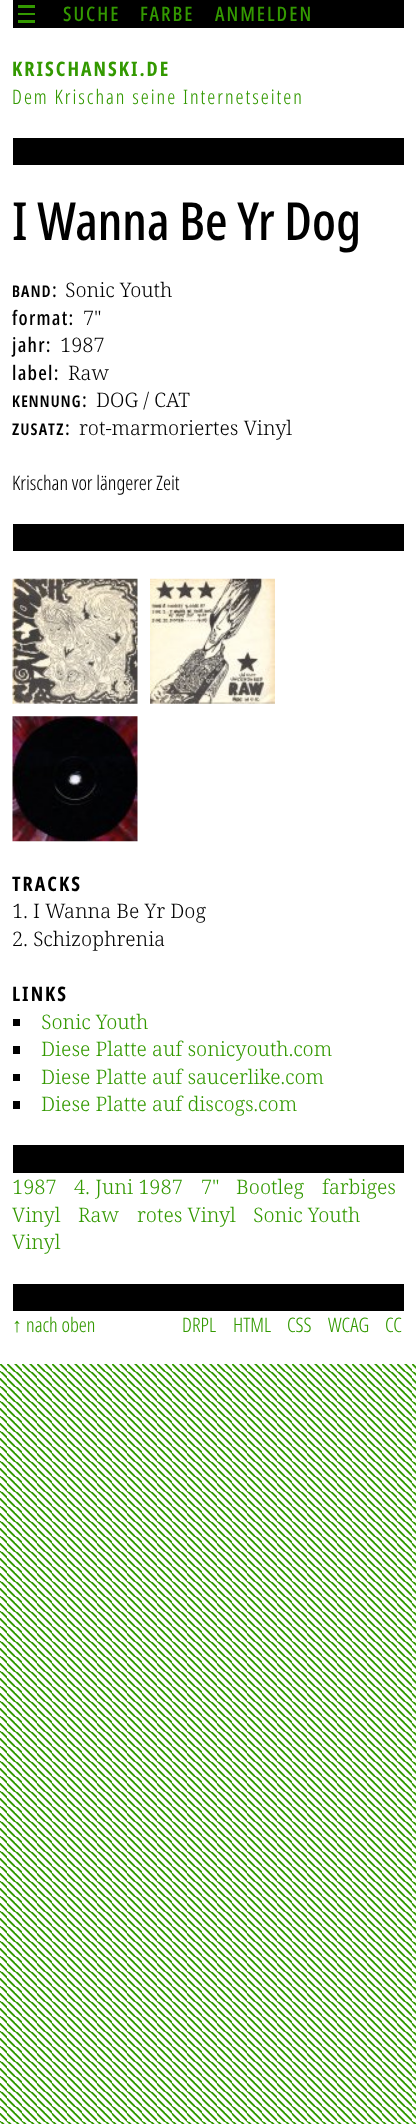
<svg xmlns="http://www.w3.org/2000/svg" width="416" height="2124">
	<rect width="100%" height="100%" fill="#339900" />
	<image x="0" y="1364" width="416" height="760" href="assets/img1.png" />
	<rect x="0" y="0" width="416" height="1364" fill="#FFFFFF" />
	<rect x="13" y="0" width="391" height="28" fill="#000000" />
	<rect x="18" y="5" width="17" height="3" fill="#339900" />
	<rect x="18" y="13" width="17" height="2" fill="#339900" />
	<rect x="18" y="20" width="17" height="3" fill="#339900" />
	<g font-family="Noto Sans" font-size="20" font-weight="500" letter-spacing="2" fill="#339900">
		<text x="63" y="21">SUCHE</text>
		<text x="140" y="21">FARBE</text>
		<text x="215" y="21">ANMELDEN</text>
	</g>
	<text x="12" y="76" font-family="Noto Sans" font-size="20" font-weight="700" letter-spacing="2" fill="#339900">KRISCHANSKI.DE</text>
	<text x="12" y="104" font-family="Noto Sans" font-size="20" font-weight="300" letter-spacing="2" fill="#339900">Dem Krischan seine Internetseiten</text>
	<rect x="13" y="138" width="391" height="27" fill="#000000" />
	<text x="12" y="240" font-family="Noto Sans" font-size="52.5" font-weight="500" fill="#000000">I Wanna Be Yr Dog</text>
	<text x="12" y="297" font-family="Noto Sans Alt" font-size="20" font-weight="500" letter-spacing="1.25" fill="#000000">band</text>
	<text x="52" y="297" font-family="Noto Sans" font-size="20" font-weight="500" letter-spacing="1.25" fill="#000000">:</text>
	<text x="65" y="297" font-family="Noto Serif" font-size="20" font-weight="300" fill="#000000">Sonic Youth</text>
	<text x="12" y="325" font-family="Noto Sans" font-size="20" font-weight="500" letter-spacing="1.25" fill="#000000">format:</text>
	<text x="83" y="325" font-family="Noto Serif" font-size="20" font-weight="300" fill="#000000">7"</text>
	<text x="12" y="352" font-family="Noto Sans" font-size="20" font-weight="500" letter-spacing="1.25" fill="#000000">jahr:</text>
	<text x="60" y="352" font-family="Noto Serif" font-size="20" font-weight="300" fill="#000000">1987</text>
	<text x="12" y="380" font-family="Noto Sans" font-size="20" font-weight="500" letter-spacing="1.25" fill="#000000">label:</text>
	<text x="68" y="380" font-family="Noto Serif" font-size="20" font-weight="300" fill="#000000">Raw</text>
	<text x="12" y="407" font-family="Noto Sans Alt" font-size="20" font-weight="500" letter-spacing="1.25" fill="#000000">kennung</text>
	<text x="82" y="407" font-family="Noto Sans" font-size="20" font-weight="500" letter-spacing="1.25" fill="#000000">:</text>
	<text x="96" y="407" font-family="Noto Serif" font-size="20" font-weight="300" fill="#000000">DOG / CAT</text>
	<text x="12" y="435" font-family="Noto Sans Alt" font-size="20" font-weight="500" letter-spacing="1.25" fill="#000000">zusatz</text>
	<text x="65" y="435" font-family="Noto Sans" font-size="20" font-weight="500" letter-spacing="1.25" fill="#000000">:</text>
	<text x="79" y="435" font-family="Noto Serif" font-size="20" font-weight="300" fill="#000000">rot-marmoriertes Vinyl</text>
	<text x="12" y="490" font-family="Noto Sans" font-size="20" font-weight="300" fill="#000000">Krischan vor längerer Zeit</text>
	<rect x="13" y="524" width="391" height="27" fill="#000000" />
	<image x="12" y="578" width="126" height="126" href="assets/img2.png" />
	<image x="150" y="578" width="125" height="126" href="assets/img3.png" />
	<image x="12" y="716" width="126" height="126" href="assets/img4.png" />
	<text x="12" y="891" font-family="Noto Sans" font-size="20" font-weight="700" letter-spacing="2" fill="#000000">TRACKS</text>
	<g font-family="Noto Serif" font-size="20" font-weight="300" fill="#000000">
		<text x="12" y="918">1. I Wanna Be Yr Dog</text>
		<text x="12" y="946">2. Schizophrenia</text>
	</g>
	<text x="12" y="1001" font-family="Noto Sans" font-size="20" font-weight="700" letter-spacing="2" fill="#000000">LINKS</text>
	<rect x="13" y="1019" width="7" height="7" fill="#000000" />
	<text x="41" y="1029" font-family="Noto Serif" font-size="20" font-weight="300" fill="#339900">Sonic Youth</text>
	<rect x="13" y="1046" width="7" height="8" fill="#000000" />
	<text x="41" y="1056" font-family="Noto Serif" font-size="20" font-weight="300" fill="#339900">Diese Platte auf sonicyouth.com</text>
	<rect x="13" y="1074" width="7" height="7" fill="#000000" />
	<text x="41" y="1084" font-family="Noto Serif" font-size="20" font-weight="300" fill="#339900">Diese Platte auf saucerlike.com</text>
	<rect x="13" y="1101" width="7" height="8" fill="#000000" />
	<text x="41" y="1111" font-family="Noto Serif" font-size="20" font-weight="300" fill="#339900">Diese Platte auf discogs.com</text>
	<rect x="13" y="1145" width="391" height="28" fill="#000000" />
	<g font-family="Noto Serif" font-size="20" font-weight="300" fill="#339900">
		<text x="12" y="1194">1987</text>
		<text x="74" y="1194">4. Juni 1987</text>
		<text x="201" y="1194">7"</text>
		<text x="236" y="1194">Bootleg</text>
		<text x="322" y="1194">farbiges</text>
		<text x="12" y="1222">Vinyl</text>
		<text x="78" y="1222">Raw</text>
		<text x="137" y="1222">rotes Vinyl</text>
		<text x="253" y="1222">Sonic Youth</text>
		<text x="12" y="1249">Vinyl</text>
	</g>
	<rect x="13" y="1284" width="391" height="27" fill="#000000" />
	<text x="12" y="1332" font-family="Liberation Sans" font-size="20" fill="#339900">↑</text>
	<g font-family="Noto Sans" font-size="20" font-weight="300" fill="#339900">
		<text x="26" y="1332">nach oben</text>
		<text x="182" y="1332">DRPL</text>
		<text x="233" y="1332">HTML</text>
		<text x="287" y="1332">CSS</text>
		<text x="328" y="1332">WCAG</text>
		<text x="385" y="1332">CC</text>
	</g>
</svg>
